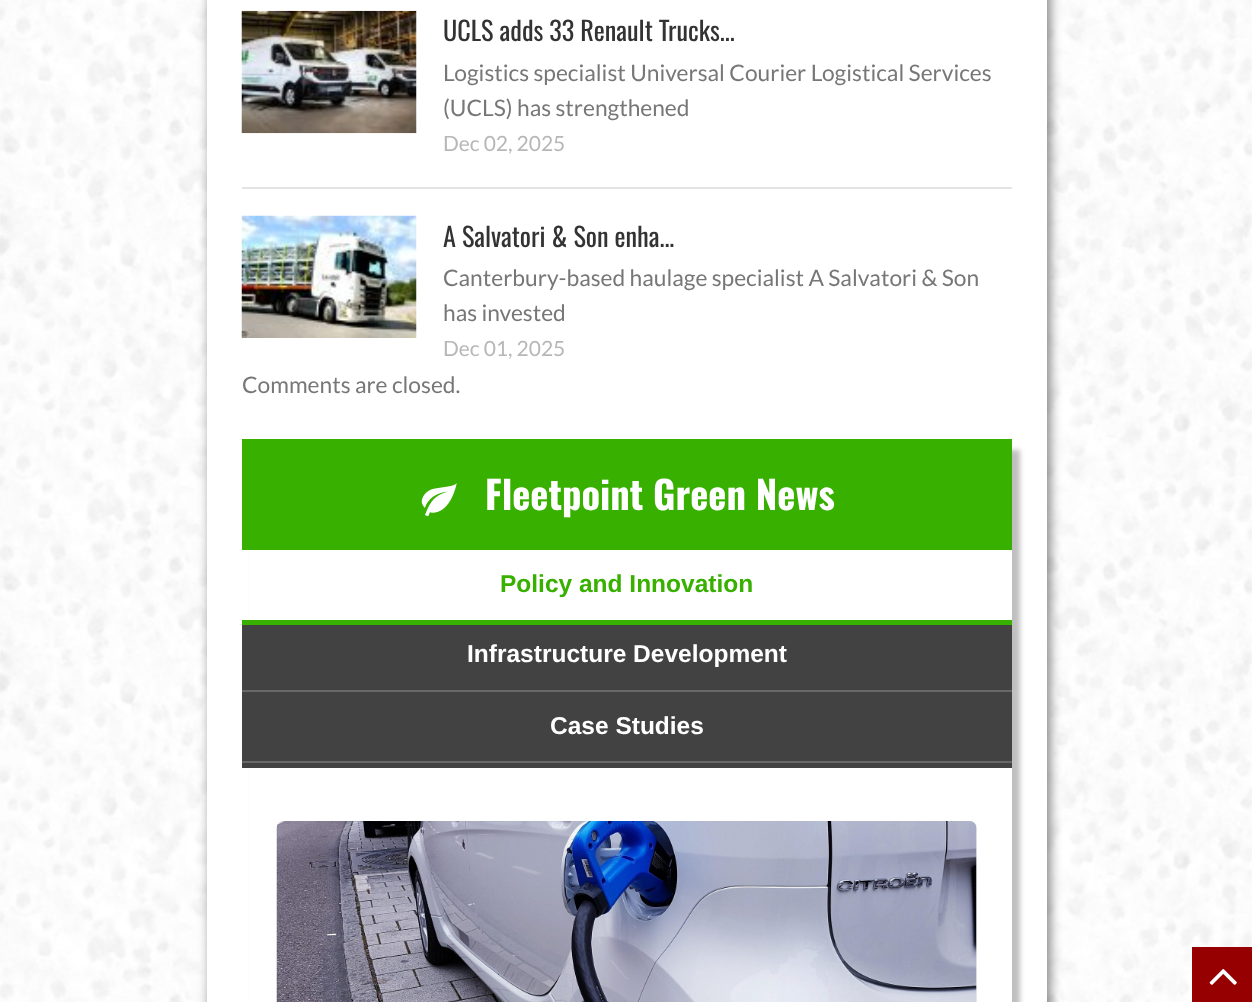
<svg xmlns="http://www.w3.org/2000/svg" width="1252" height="1002">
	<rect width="100%" height="100%" fill="#FFFFFF" />
	<image x="0" y="0" width="1252" height="1002" href="assets/img1.png" />
	<rect x="210" y="-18" width="840" height="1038" fill="#000000" fill-opacity="0.5" filter="blur(6px)" />
	<rect x="207" y="0" width="840" height="1002" fill="#FFFFFF" />
	<rect x="242" y="187" width="770" height="2" fill="#E4E4E4" />
	<image x="241" y="10" width="176" height="124" href="assets/img2.png" />
	<text x="443" y="41" font-family="Oswald" font-size="26.25" fill="#333333">UCLS adds 33 Renault Trucks...</text>
	<g font-family="Lato" font-size="22.75" fill="#777777">
		<text x="443" y="81">Logistics specialist Universal Courier Logistical Services</text>
		<text x="443" y="116">(UCLS) has strengthened</text>
	</g>
	<text x="443" y="151" font-family="Lato" font-size="21" fill="#B7B7B7">Dec 02, 2025</text>
	<image x="241" y="215" width="176" height="123" href="assets/img3.png" />
	<text x="443" y="247" font-family="Oswald" font-size="26.25" fill="#333333">A Salvatori &amp; Son enha...</text>
	<g font-family="Lato" font-size="22.75" fill="#777777">
		<text x="443" y="286">Canterbury-based haulage specialist A Salvatori &amp; Son</text>
		<text x="443" y="321">has invested</text>
	</g>
	<text x="443" y="356" font-family="Lato" font-size="21" fill="#B7B7B7">Dec 01, 2025</text>
	<text x="242" y="393" font-family="Lato" font-size="22.75" fill="#777777">Comments are closed.</text>
	<rect x="254" y="450" width="766" height="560" fill="#737173" fill-opacity="0.45" filter="blur(2.5px)" />
	<rect x="242" y="439" width="770" height="111" fill="#38B000" />
	<image x="421" y="483" width="36" height="34" href="assets/img4.png" />
	<text x="485" y="510" font-family="Oswald" font-size="38.5" font-weight="700" fill="#FFFFFF">Fleetpoint Green News</text>
	<rect x="242" y="625" width="770" height="143" fill="#424242" />
	<rect x="250" y="550" width="762" height="70" fill="#FFFFFF" />
	<rect x="242" y="620" width="770" height="5" fill="#38B000" />
	<text x="500" y="592" font-family="Liberation Sans" font-size="24.5" font-weight="700" fill="#38B000">Policy and Innovation</text>
	<rect x="242" y="690" width="770" height="2" fill="#686868" />
	<text x="467" y="662" font-family="Liberation Sans" font-size="24.5" font-weight="700" fill="#FFFFFF">Infrastructure Development</text>
	<rect x="242" y="761" width="770" height="2" fill="#686868" />
	<text x="550" y="734" font-family="Liberation Sans" font-size="24.5" font-weight="700" fill="#FFFFFF">Case Studies</text>
	<rect x="250" y="768" width="762" height="234" fill="#FFFFFF" />
	<rect x="277" y="821" width="700" height="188" rx="7" fill="#E9ECEF" />
	<image x="276" y="821" width="701" height="181" href="assets/img5.png" />
	<rect x="1192" y="947" width="60" height="55" fill="#960000" />
	<image x="1209" y="969" width="28" height="16" href="assets/img6.png" />
</svg>
